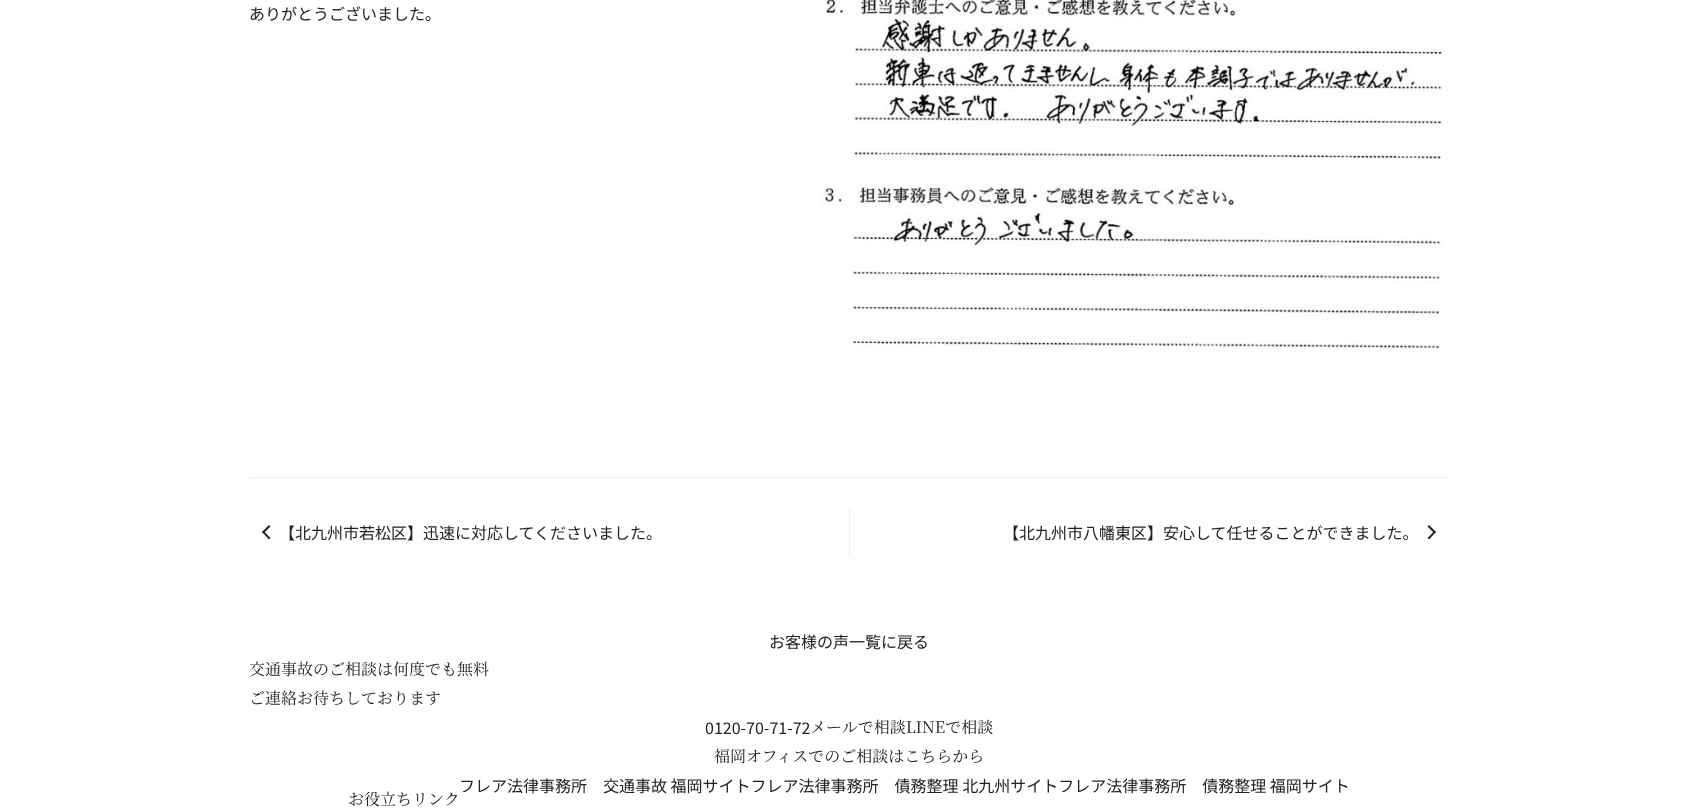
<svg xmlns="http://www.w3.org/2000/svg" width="1698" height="808">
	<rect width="100%" height="100%" fill="#FFFFFF" />
	<text x="249" y="20" font-family="Noto Sans JP" font-size="16" fill="#222222">ありがとうございました。</text>
	<image x="820" y="0" width="623" height="350" href="assets/img1.png" />
	<rect x="249" y="477" width="1200" height="1" fill="#EEEEEE" />
	<path d="M262 532L269 525L270.5 526.5L263.5 533.5Z" fill="#222222" />
	<path d="M262 532L263.5 531L270.5 538L269 539.5Z" fill="#222222" />
	<text x="279" y="539" font-family="Noto Sans JP" font-size="16" fill="#222222">【北九州市若松区】迅速に対応してくださいました。</text>
	<rect x="849" y="508" width="1" height="49" fill="#EEEEEE" />
	<text x="1003" y="539" font-family="Noto Sans JP" font-size="16" fill="#222222">【北九州市八幡東区】安心して任せることができました。</text>
	<path d="M1429 525L1436 532L1434.5 533.5L1427.5 526.5Z" fill="#222222" />
	<path d="M1434.5 531L1436 532L1429 539.5L1427.5 538Z" fill="#222222" />
	<text x="769" y="648" font-family="Noto Sans JP" font-size="16" fill="#222222">お客様の声一覧に戻る</text>
	<g font-family="Noto Serif JP" font-size="16" fill="#222222">
		<text x="249" y="675">交通事故のご相談は何度でも無料</text>
		<text x="249" y="704">ご連絡お待ちしております</text>
	</g>
	<text x="705" y="734" font-family="Noto Sans JP" font-size="16" fill="#222222">0120-70-71-72</text>
	<g font-family="Noto Serif JP" font-size="16" fill="#222222">
		<text x="810" y="733">メールで相談LINEで相談</text>
		<text x="714" y="762">福岡オフィスでのご相談はこちらから</text>
	</g>
	<text x="459" y="792" font-family="Noto Sans JP" font-size="16" fill="#222222">フレア法律事務所　交通事故 福岡サイトフレア法律事務所　債務整理 北九州サイトフレア法律事務所　債務整理 福岡サイト</text>
	<text x="348" y="805" font-family="Noto Serif JP" font-size="16" fill="#222222">お役立ちリンク</text>
</svg>
